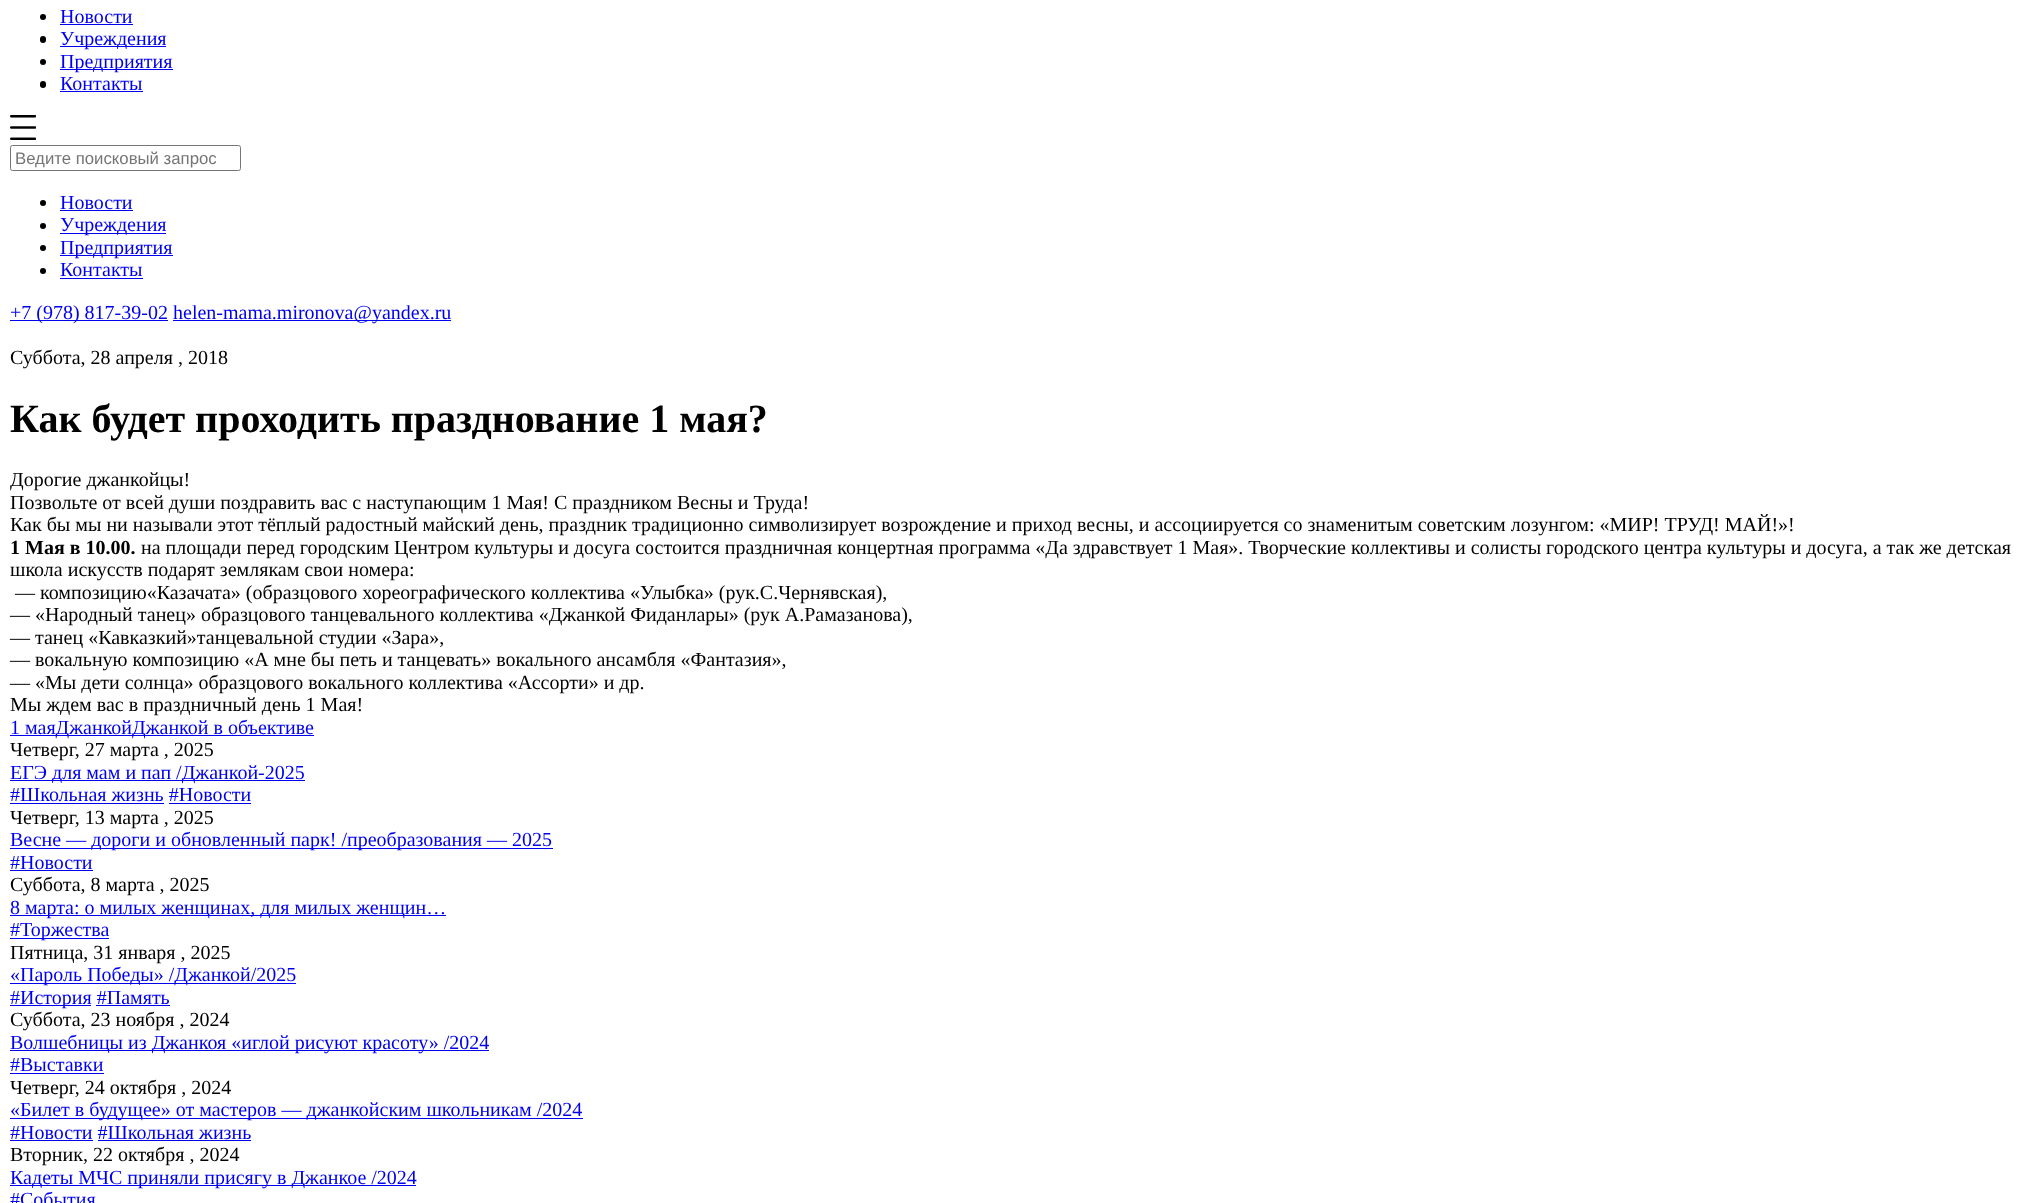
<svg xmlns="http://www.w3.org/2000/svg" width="2037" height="1203">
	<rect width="100%" height="100%" fill="#FFFFFF" />
	<circle cx="43" cy="17" r="3" fill="#000000" />
	<text x="60" y="23" font-family="Liberation Serif" font-size="20" fill="#0000EE">Новости</text>
	<rect x="60" y="24" width="73" height="1" fill="#0000EE" />
	<rect x="40" y="36" width="6" height="7" rx="3" fill="#000000" />
	<rect x="60" y="46" width="106" height="1" fill="#0000EE" />
	<text x="60" y="45" font-family="Liberation Serif" font-size="20" fill="#0000EE">Учреждения</text>
	<circle cx="43" cy="62" r="3" fill="#000000" />
	<rect x="60" y="69" width="113" height="1" fill="#0000EE" />
	<text x="60" y="68" font-family="Liberation Serif" font-size="20" fill="#0000EE">Предприятия</text>
	<rect x="40" y="81" width="6" height="7" rx="3" fill="#000000" />
	<text x="60" y="90" font-family="Liberation Serif" font-size="20" fill="#0000EE">Контакты</text>
	<rect x="60" y="91" width="83" height="1" fill="#0000EE" />
	<image x="10" y="115" width="26" height="25" href="assets/img1.png" />
	<rect x="10.5" y="145.5" width="230" height="25" rx="2" fill="none" stroke="#767676" />
	<text x="15" y="164" font-family="Liberation Sans" font-size="16.75" fill="#757575">Ведите поисковый запрос</text>
	<circle cx="43" cy="203" r="3" fill="#000000" />
	<text x="60" y="209" font-family="Liberation Serif" font-size="20" fill="#0000EE">Новости</text>
	<rect x="60" y="210" width="73" height="1" fill="#0000EE" />
	<circle cx="43" cy="226" r="3" fill="#000000" />
	<rect x="60" y="233" width="106" height="1" fill="#0000EE" />
	<text x="60" y="231" font-family="Liberation Serif" font-size="20" fill="#0000EE">Учреждения</text>
	<circle cx="43" cy="248" r="3" fill="#000000" />
	<rect x="60" y="255" width="113" height="1" fill="#0000EE" />
	<text x="60" y="254" font-family="Liberation Serif" font-size="20" fill="#0000EE">Предприятия</text>
	<circle cx="43" cy="271" r="3" fill="#000000" />
	<text x="60" y="276" font-family="Liberation Serif" font-size="20" fill="#0000EE">Контакты</text>
	<rect x="60" y="278" width="83" height="1" fill="#0000EE" />
	<rect x="10" y="320" width="158" height="1" fill="#0000EE" />
	<text x="10" y="319" font-family="Liberation Serif" font-size="20" fill="#0000EE">+7 (978) 817-39-02</text>
	<rect x="173" y="320" width="278" height="1" fill="#0000EE" />
	<text x="173" y="319" font-family="Liberation Serif" font-size="20" fill="#0000EE">helen-mama.mironova@yandex.ru</text>
	<text x="10" y="364" font-family="Liberation Serif" font-size="20" fill="#000000">Суббота, 28 апреля , 2018</text>
	<text x="10" y="432" font-family="Liberation Serif" font-size="40" font-weight="700" fill="#000000">Как будет проходить празднование 1 мая?</text>
	<g font-family="Liberation Serif" font-size="20" fill="#000000">
		<text x="10" y="486">Дорогие джанкойцы!</text>
		<text x="10" y="509">Позвольте от всей души поздравить вас с наступающим 1 Мая! С праздником Весны и Труда!</text>
		<text x="10" y="531">Как бы мы ни называли этот тёплый радостный майский день, праздник традиционно символизирует возрождение и приход весны, и ассоциируется со знаменитым советским лозунгом: «МИР! ТРУД! МАЙ!»!</text>
	</g>
	<text x="10" y="554" font-family="Liberation Serif" font-size="20" font-weight="700" fill="#000000">1 Мая в 10.00.</text>
	<g font-family="Liberation Serif" font-size="20" fill="#000000">
		<text x="141" y="554">на площади перед городским Центром культуры и досуга состоится праздничная концертная программа «Да здравствует 1 Мая». Творческие коллективы и солисты городского центра культуры и досуга, а так же детская</text>
		<text x="10" y="576">школа искусств подарят землякам свои номера:</text>
		<text x="15" y="599">— композицию«Казачата» (образцового хореографического коллектива «Улыбка» (рук.С.Чернявская),</text>
		<text x="10" y="621">— «Народный танец» образцового танцевального коллектива «Джанкой Фиданлары» (рук А.Рамазанова),</text>
		<text x="10" y="644">— танец «Кавказкий»танцевальной студии «Зара»,</text>
		<text x="10" y="666">— вокальную композицию «А мне бы петь и танцевать» вокального ансамбля «Фантазия»,</text>
		<text x="10" y="689">— «Мы дети солнца» образцового вокального коллектива «Ассорти» и др.</text>
		<text x="10" y="711">Мы ждем вас в праздничный день 1 Мая!</text>
	</g>
	<rect x="10" y="735" width="304" height="1" fill="#0000EE" />
	<text x="10" y="734" font-family="Liberation Serif" font-size="20" fill="#0000EE">1 маяДжанкойДжанкой в объективе</text>
	<text x="10" y="756" font-family="Liberation Serif" font-size="20" fill="#000000">Четверг, 27 марта , 2025</text>
	<rect x="10" y="780" width="295" height="1" fill="#0000EE" />
	<g font-family="Liberation Serif" font-size="20" fill="#0000EE">
		<text x="10" y="779">ЕГЭ для мам и пап /Джанкой-2025</text>
		<text x="10" y="801">#Школьная жизнь #Новости</text>
	</g>
	<rect x="10" y="803" width="154" height="1" fill="#0000EE" />
	<rect x="169" y="803" width="82" height="1" fill="#0000EE" />
	<text x="10" y="824" font-family="Liberation Serif" font-size="20" fill="#000000">Четверг, 13 марта , 2025</text>
	<rect x="10" y="848" width="543" height="1" fill="#0000EE" />
	<g font-family="Liberation Serif" font-size="20" fill="#0000EE">
		<text x="10" y="846">Весне — дороги и обновленный парк! /преобразования — 2025</text>
		<text x="10" y="869">#Новости</text>
	</g>
	<rect x="10" y="870" width="83" height="1" fill="#0000EE" />
	<text x="10" y="891" font-family="Liberation Serif" font-size="20" fill="#000000">Суббота, 8 марта , 2025</text>
	<rect x="10" y="915" width="436" height="1" fill="#0000EE" />
	<text x="10" y="914" font-family="Liberation Serif" font-size="20" fill="#0000EE">8 марта: о милых женщинах, для милых женщин…</text>
	<rect x="10" y="938" width="99" height="1" fill="#0000EE" />
	<text x="10" y="936" font-family="Liberation Serif" font-size="20" fill="#0000EE">#Торжества</text>
	<text x="10" y="959" font-family="Liberation Serif" font-size="20" fill="#000000">Пятница, 31 января , 2025</text>
	<rect x="10" y="983" width="286" height="1" fill="#0000EE" />
	<text x="10" y="981" font-family="Liberation Serif" font-size="20" fill="#0000EE">«Пароль Победы» /Джанкой/2025</text>
	<rect x="10" y="1005" width="81" height="1" fill="#0000EE" />
	<text x="10" y="1004" font-family="Liberation Serif" font-size="20" fill="#0000EE">#История #Память</text>
	<rect x="96" y="1005" width="74" height="1" fill="#0000EE" />
	<text x="10" y="1026" font-family="Liberation Serif" font-size="20" fill="#000000">Суббота, 23 ноября , 2024</text>
	<rect x="10" y="1050" width="479" height="1" fill="#0000EE" />
	<g font-family="Liberation Serif" font-size="20" fill="#0000EE">
		<text x="10" y="1049">Волшебницы из Джанкоя «иглой рисуют красоту» /2024</text>
		<text x="10" y="1071">#Выставки</text>
	</g>
	<rect x="10" y="1073" width="94" height="1" fill="#0000EE" />
	<text x="10" y="1094" font-family="Liberation Serif" font-size="20" fill="#000000">Четверг, 24 октября , 2024</text>
	<rect x="10" y="1118" width="573" height="1" fill="#0000EE" />
	<g font-family="Liberation Serif" font-size="20" fill="#0000EE">
		<text x="10" y="1116">«Билет в будущее» от мастеров — джанкойским школьникам /2024</text>
		<text x="10" y="1139">#Новости #Школьная жизнь</text>
	</g>
	<rect x="10" y="1140" width="83" height="1" fill="#0000EE" />
	<rect x="98" y="1140" width="153" height="1" fill="#0000EE" />
	<text x="10" y="1161" font-family="Liberation Serif" font-size="20" fill="#000000">Вторник, 22 октября , 2024</text>
	<rect x="10" y="1185" width="406" height="1" fill="#0000EE" />
	<g font-family="Liberation Serif" font-size="20" fill="#0000EE">
		<text x="10" y="1184">Кадеты МЧС приняли присягу в Джанкое /2024</text>
		<text x="10" y="1206">#События</text>
	</g>
</svg>
